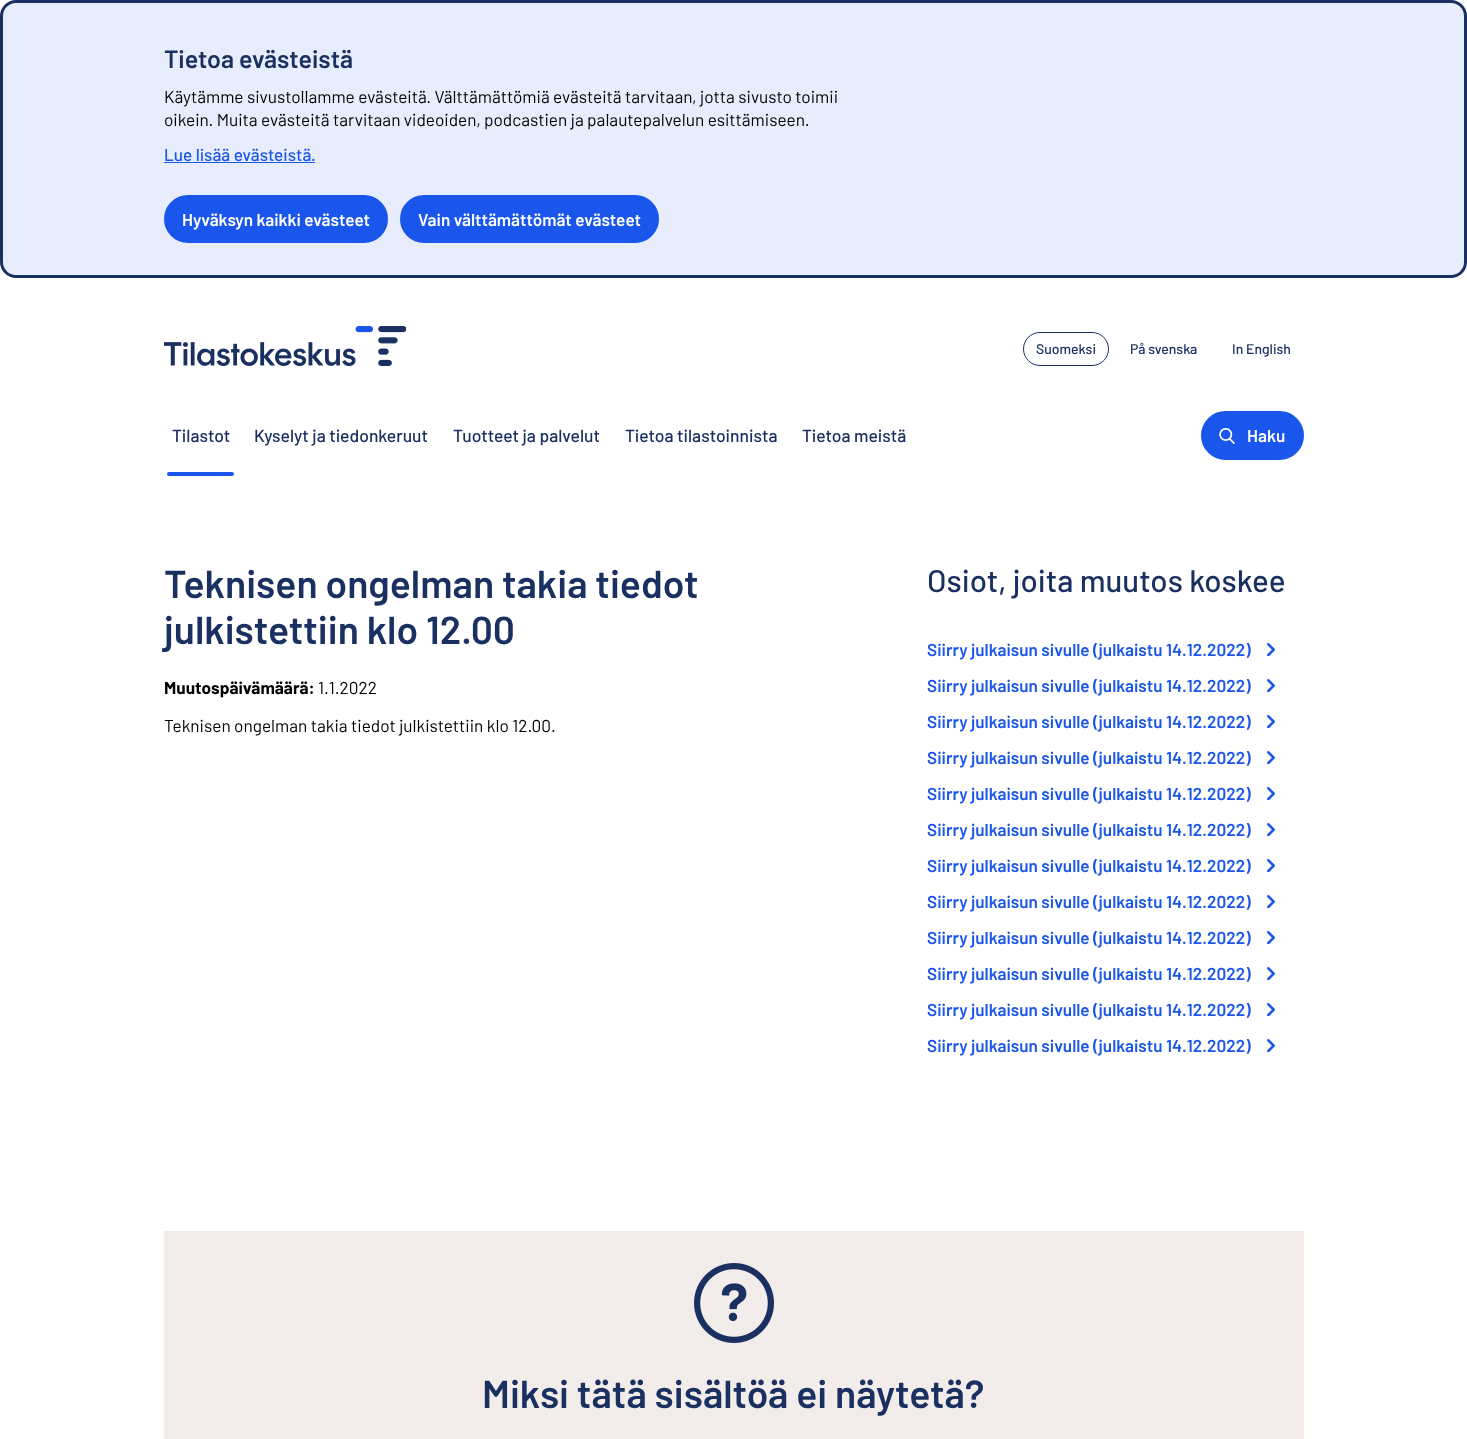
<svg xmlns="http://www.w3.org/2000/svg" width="1467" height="1439">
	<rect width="100%" height="100%" fill="#FFFFFF" />
	<rect x="1.5" y="1.5" width="1464" height="275" rx="14.5" fill="#E8EDFD" stroke="#1A3061" stroke-width="3" />
	<text x="164" y="68" font-family="Barlow" font-size="25" font-weight="600" fill="#1A3061">Tietoa evästeistä</text>
	<g font-family="Barlow" font-size="17.2" fill="#000000">
		<text x="164" y="103">Käytämme sivustollamme evästeitä. Välttämättömiä evästeitä tarvitaan, jotta sivusto toimii</text>
		<text x="164" y="126">oikein. Muita evästeitä tarvitaan videoiden, podcastien ja palautepalvelun esittämiseen.</text>
	</g>
	<text x="164" y="161" font-family="Barlow" font-size="17.2" font-weight="500" fill="#1A56EC">Lue lisää evästeistä.</text>
	<rect x="164" y="162" width="151" height="1" fill="#1A56EC" />
	<rect x="165" y="196" width="222" height="46" rx="23" fill="#1A56EC" stroke="#1A56EC" stroke-width="2" />
	<text x="182" y="226" font-family="Barlow" font-size="17.2" font-weight="600" fill="#FFFFFF">Hyväksyn kaikki evästeet</text>
	<rect x="401" y="196" width="257" height="46" rx="23" fill="#1A56EC" stroke="#1A56EC" stroke-width="2" />
	<text x="418" y="226" font-family="Barlow" font-size="17.2" font-weight="600" fill="#FFFFFF">Vain välttämättömät evästeet</text>
	<image x="164" y="326" width="242" height="40" href="assets/img1.png" />
	<rect x="1023.5" y="332.5" width="85" height="33" rx="16.5" fill="none" stroke="#1A3061" />
	<g font-family="Barlow" font-size="14" font-weight="500" fill="#1A3061">
		<text x="1036" y="354">Suomeksi</text>
		<text x="1130" y="354">På svenska</text>
		<text x="1232" y="354">In English</text>
	</g>
	<text x="172" y="442" font-family="Barlow" font-size="17.5" font-weight="500" fill="#1A3061">Tilastot</text>
	<rect x="167" y="472" width="67" height="4" rx="2" fill="#1A56EC" />
	<g font-family="Barlow" font-size="17.5" font-weight="500" fill="#1A3061">
		<text x="254" y="442">Kyselyt ja tiedonkeruut</text>
		<text x="453" y="442">Tuotteet ja palvelut</text>
		<text x="625" y="442">Tietoa tilastoinnista</text>
		<text x="802" y="442">Tietoa meistä</text>
	</g>
	<rect x="1202" y="412" width="101" height="47" rx="23.5" fill="#1A56EC" stroke="#1A56EC" stroke-width="2" />
	<image x="1219" y="428" width="16" height="16" href="assets/img2.png" />
	<text x="1247" y="442" font-family="Barlow" font-size="17.2" font-weight="600" fill="#FFFFFF">Haku</text>
	<g font-family="Barlow" font-size="39" font-weight="600" fill="#1A3061">
		<text x="164" y="598">Teknisen ongelman takia tiedot</text>
		<text x="164" y="644">julkistettiin klo 12.00</text>
	</g>
	<text x="164" y="694" font-family="Barlow" font-size="17.2" font-weight="700" fill="#000000">Muutospäivämäärä:</text>
	<g font-family="Barlow" font-size="17.2" fill="#000000">
		<text x="318" y="694">1.1.2022</text>
		<text x="164" y="732">Teknisen ongelman takia tiedot julkistettiin klo 12.00.</text>
	</g>
	<text x="927" y="592" font-family="Barlow" font-size="31.25" font-weight="500" fill="#1A3061">Osiot, joita muutos koskee</text>
	<text x="927" y="656" font-family="Barlow" font-size="17.2" font-weight="600" fill="#1A56EC">Siirry julkaisun sivulle (julkaistu 14.12.2022)</text>
	<image x="1267" y="643" width="8" height="13" href="assets/img3.png" />
	<text x="927" y="692" font-family="Barlow" font-size="17.2" font-weight="600" fill="#1A56EC">Siirry julkaisun sivulle (julkaistu 14.12.2022)</text>
	<image x="1267" y="679" width="8" height="13" href="assets/img3.png" />
	<text x="927" y="728" font-family="Barlow" font-size="17.2" font-weight="600" fill="#1A56EC">Siirry julkaisun sivulle (julkaistu 14.12.2022)</text>
	<image x="1267" y="715" width="8" height="13" href="assets/img3.png" />
	<text x="927" y="764" font-family="Barlow" font-size="17.2" font-weight="600" fill="#1A56EC">Siirry julkaisun sivulle (julkaistu 14.12.2022)</text>
	<image x="1267" y="751" width="8" height="13" href="assets/img3.png" />
	<text x="927" y="800" font-family="Barlow" font-size="17.2" font-weight="600" fill="#1A56EC">Siirry julkaisun sivulle (julkaistu 14.12.2022)</text>
	<image x="1267" y="787" width="8" height="13" href="assets/img3.png" />
	<text x="927" y="836" font-family="Barlow" font-size="17.2" font-weight="600" fill="#1A56EC">Siirry julkaisun sivulle (julkaistu 14.12.2022)</text>
	<image x="1267" y="823" width="8" height="13" href="assets/img3.png" />
	<text x="927" y="872" font-family="Barlow" font-size="17.2" font-weight="600" fill="#1A56EC">Siirry julkaisun sivulle (julkaistu 14.12.2022)</text>
	<image x="1267" y="859" width="8" height="13" href="assets/img3.png" />
	<text x="927" y="908" font-family="Barlow" font-size="17.2" font-weight="600" fill="#1A56EC">Siirry julkaisun sivulle (julkaistu 14.12.2022)</text>
	<image x="1267" y="895" width="8" height="13" href="assets/img3.png" />
	<text x="927" y="944" font-family="Barlow" font-size="17.2" font-weight="600" fill="#1A56EC">Siirry julkaisun sivulle (julkaistu 14.12.2022)</text>
	<image x="1267" y="931" width="8" height="13" href="assets/img3.png" />
	<text x="927" y="980" font-family="Barlow" font-size="17.2" font-weight="600" fill="#1A56EC">Siirry julkaisun sivulle (julkaistu 14.12.2022)</text>
	<image x="1267" y="967" width="8" height="13" href="assets/img3.png" />
	<text x="927" y="1016" font-family="Barlow" font-size="17.2" font-weight="600" fill="#1A56EC">Siirry julkaisun sivulle (julkaistu 14.12.2022)</text>
	<image x="1267" y="1003" width="8" height="13" href="assets/img3.png" />
	<text x="927" y="1052" font-family="Barlow" font-size="17.2" font-weight="600" fill="#1A56EC">Siirry julkaisun sivulle (julkaistu 14.12.2022)</text>
	<image x="1267" y="1039" width="8" height="13" href="assets/img3.png" />
	<rect x="164" y="1231" width="1140" height="208" fill="#F2ECEA" />
	<image x="694" y="1263" width="80" height="80" href="assets/img4.png" />
	<text x="482" y="1408" font-family="Barlow" font-size="39" font-weight="600" fill="#1A3061">Miksi tätä sisältöä ei näytetä?</text>
</svg>
